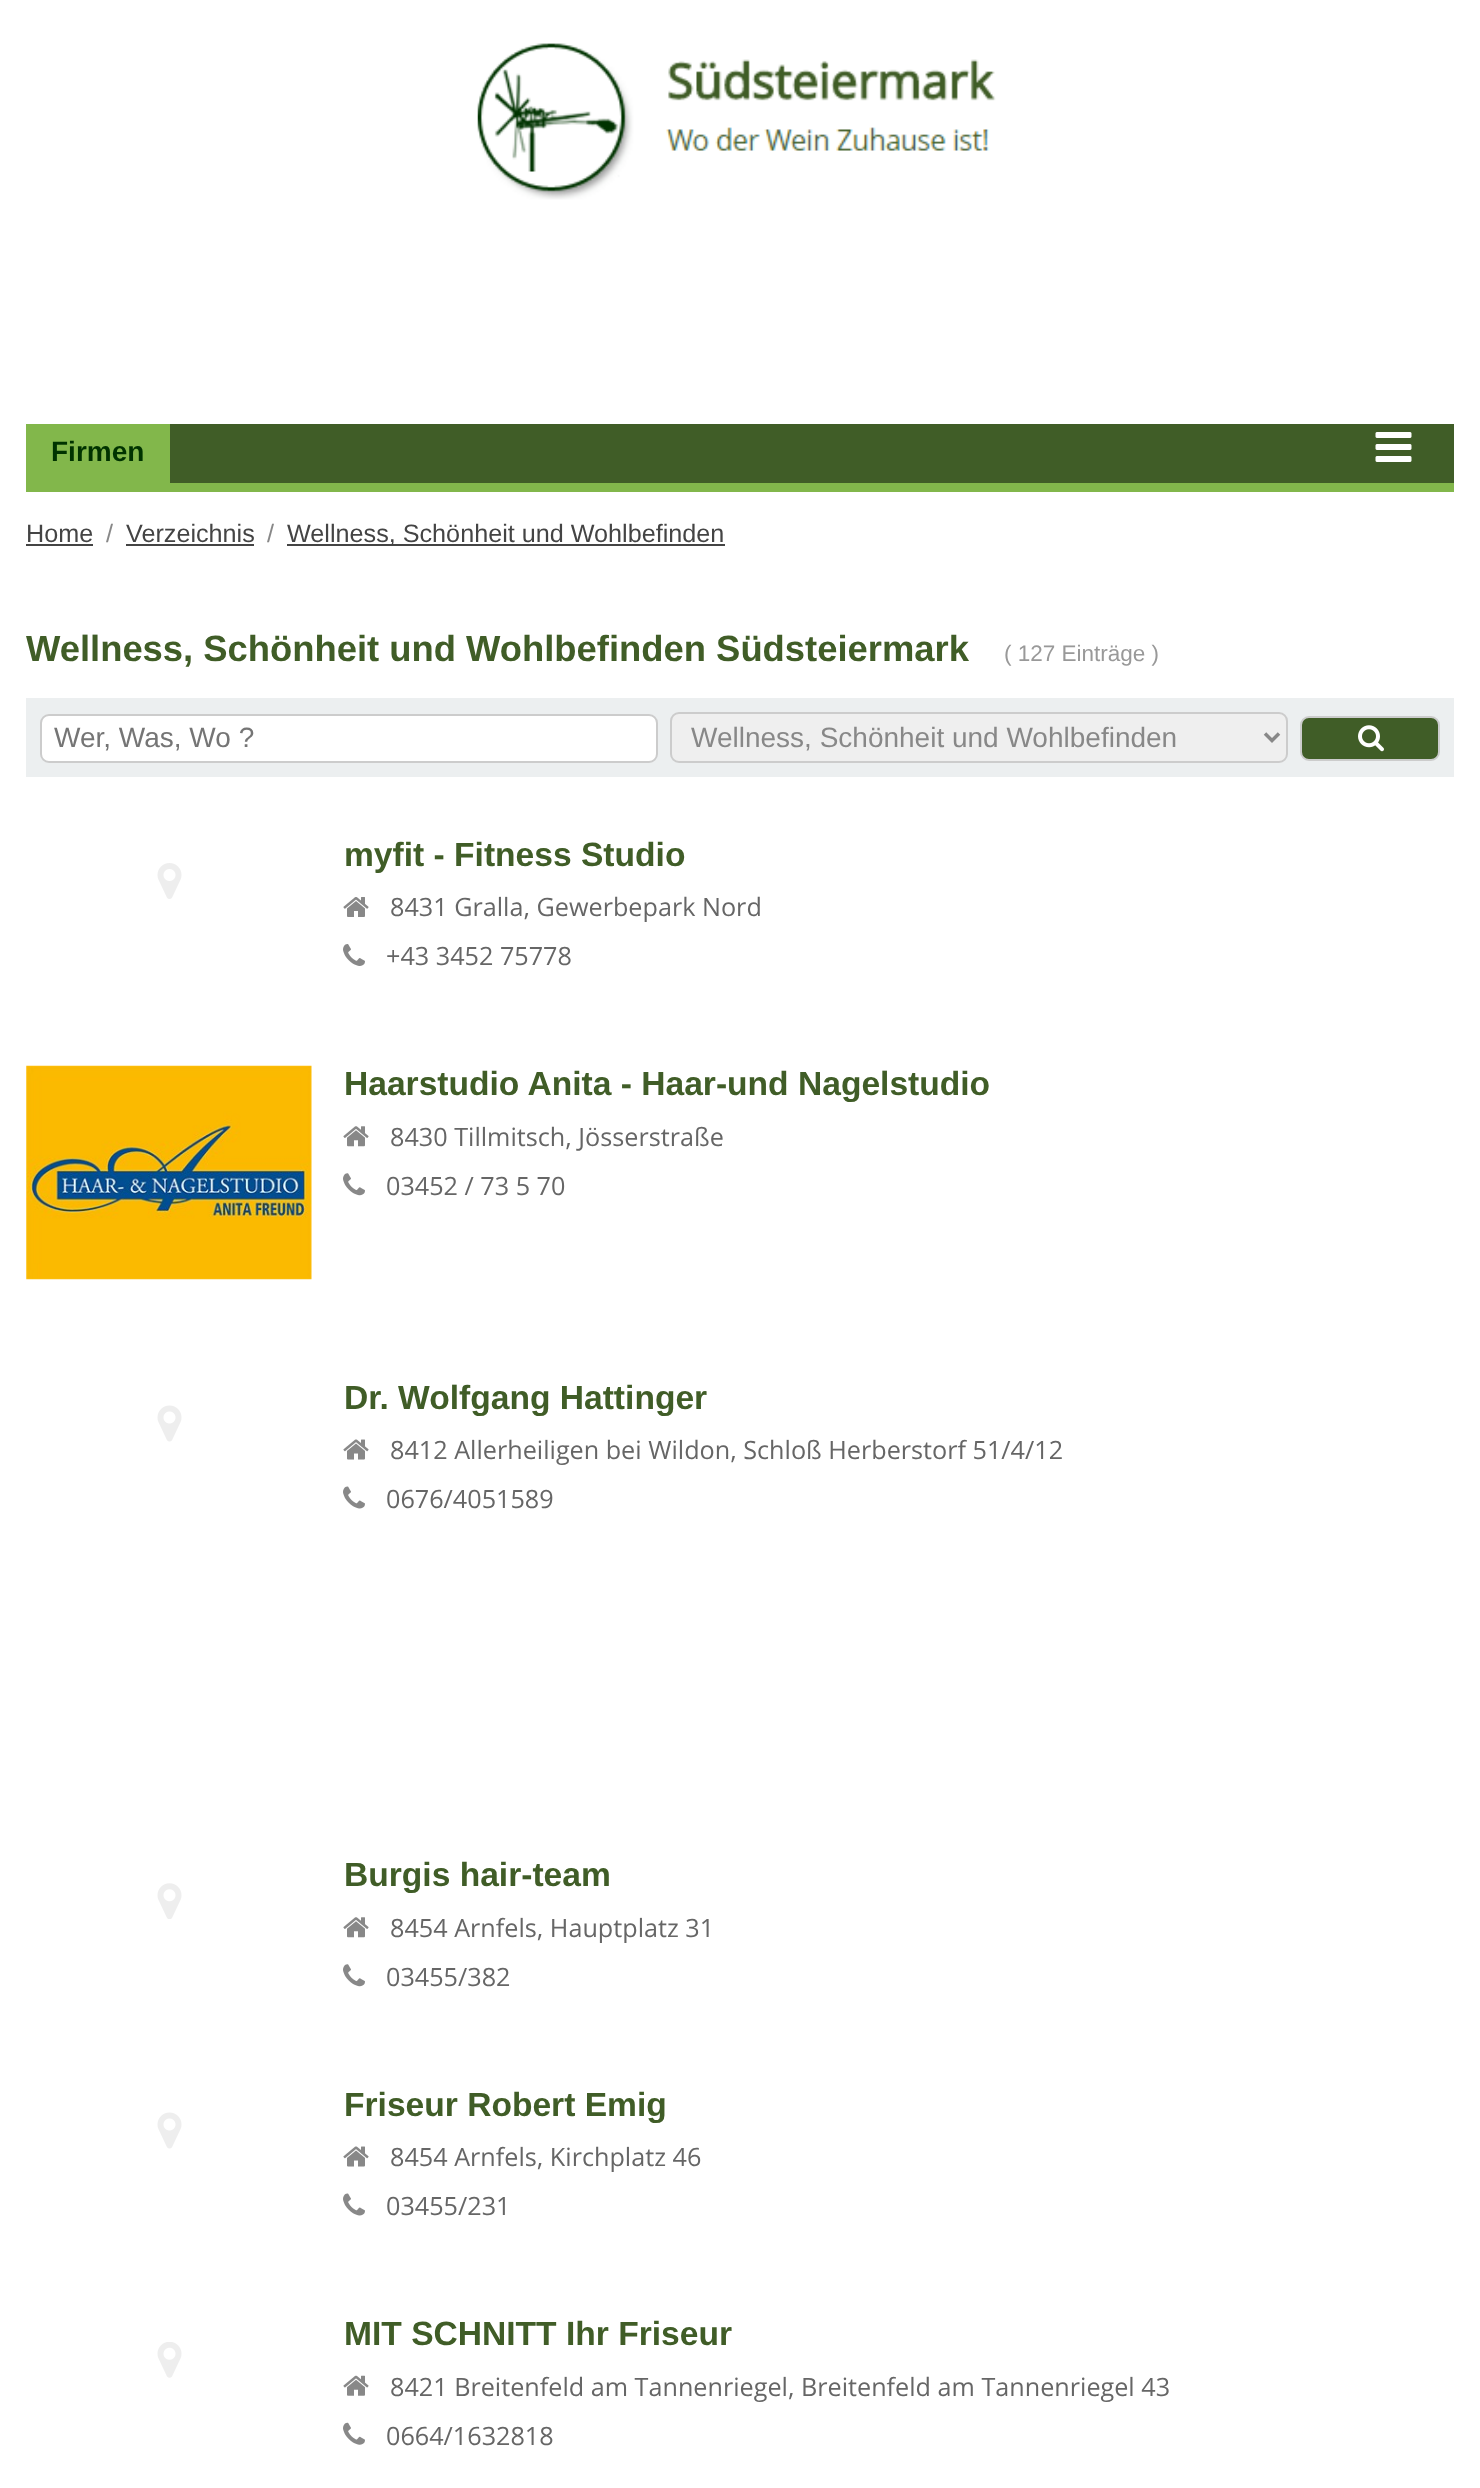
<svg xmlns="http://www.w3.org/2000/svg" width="1480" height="2488">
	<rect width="100%" height="100%" fill="#FFFFFF" />
	<image x="477" y="43" width="519" height="157" href="assets/img1.png" />
	<rect x="170" y="424" width="1284" height="59" fill="#405D27" />
	<rect x="26" y="483" width="1428" height="9" fill="#82B74B" />
	<rect x="26" y="424" width="144" height="59" fill="#82B74B" />
	<text x="51" y="461" font-family="Liberation Sans" font-size="28" font-weight="700" fill="#003300">Firmen</text>
	<image x="1375" y="432" width="37" height="30" href="assets/img2.png" />
	<text x="26" y="542" font-family="Liberation Sans" font-size="25.2" fill="#444444">Home</text>
	<rect x="26" y="544" width="67" height="2" fill="#444444" />
	<text x="106" y="542" font-family="Liberation Sans" font-size="25.2" fill="#888888">/</text>
	<text x="126" y="542" font-family="Liberation Sans" font-size="25.2" fill="#444444">Verzeichnis</text>
	<rect x="126" y="544" width="128" height="2" fill="#444444" />
	<text x="267" y="542" font-family="Liberation Sans" font-size="25.2" fill="#888888">/</text>
	<rect x="287" y="544" width="438" height="2" fill="#444444" />
	<text x="287" y="542" font-family="Liberation Sans" font-size="25.2" fill="#444444">Wellness, Schönheit und Wohlbefinden</text>
	<text x="26" y="661" font-family="Liberation Sans" font-size="36.4" font-weight="700" fill="#405D27">Wellness, Schönheit und Wohlbefinden Südsteiermark</text>
	<text x="1004" y="661" font-family="Liberation Sans" font-size="22.5" fill="#999999">( 127 Einträge )</text>
	<rect x="26" y="698" width="1428" height="79" fill="#ECEFF0" />
	<rect x="41" y="715" width="616" height="47" rx="8" fill="#FFFFFF" stroke="#CCCCCC" stroke-width="2" />
	<text x="54" y="747" font-family="Liberation Sans" font-size="28" fill="#757575">Wer, Was, Wo ?</text>
	<rect x="671" y="713" width="616" height="49" rx="8" fill="#EFEFEF" stroke="#CCCCCC" stroke-width="2" />
	<path d="M1265 733.5L1272 740.5L1279 733.5" fill="none" stroke="#888888" stroke-width="3.5" />
	<text x="691" y="747" font-family="Liberation Sans" font-size="28" fill="#888888">Wellness, Schönheit und Wohlbefinden</text>
	<rect x="1301" y="717" width="138" height="43" rx="8" fill="#405D27" stroke="#CCCCCC" stroke-width="2" />
	<image x="1358" y="725" width="26" height="27" href="assets/img3.png" />
	<image x="157" y="863" width="25" height="36" href="assets/img4.png" />
	<text x="344" y="866" font-family="Liberation Sans" font-size="33.6" font-weight="700" fill="#405D27">myfit - Fitness Studio</text>
	<image x="343" y="897" width="26" height="20" href="assets/img5.png" />
	<text x="390" y="916" font-family="Open Sans" font-size="25.2" fill="#666666">8431 Gralla, Gewerbepark Nord</text>
	<image x="343" y="944" width="22" height="22" href="assets/img6.png" />
	<text x="386" y="965" font-family="Open Sans" font-size="25.2" fill="#666666">+43 3452 75778</text>
	<image x="26" y="1065" width="286" height="215" href="assets/img7.png" />
	<text x="344" y="1095" font-family="Liberation Sans" font-size="33.6" font-weight="700" fill="#405D27">Haarstudio Anita - Haar-und Nagelstudio</text>
	<image x="343" y="1126" width="26" height="21" href="assets/img8.png" />
	<text x="390" y="1146" font-family="Open Sans" font-size="25.2" fill="#666666">8430 Tillmitsch, Jösserstraße</text>
	<image x="343" y="1173" width="22" height="23" href="assets/img9.png" />
	<text x="386" y="1195" font-family="Open Sans" font-size="25.2" fill="#666666">03452 / 73 5 70</text>
	<image x="157" y="1405" width="25" height="37" href="assets/img10.png" />
	<text x="344" y="1409" font-family="Liberation Sans" font-size="33.6" font-weight="700" fill="#405D27">Dr. Wolfgang Hattinger</text>
	<image x="343" y="1439" width="26" height="21" href="assets/img11.png" />
	<text x="390" y="1459" font-family="Open Sans" font-size="25.2" fill="#666666">8412 Allerheiligen bei Wildon, Schloß Herberstorf 51/4/12</text>
	<image x="343" y="1486" width="22" height="23" href="assets/img12.png" />
	<text x="386" y="1508" font-family="Open Sans" font-size="25.2" fill="#666666">0676/4051589</text>
	<image x="157" y="1883" width="25" height="36" href="assets/img13.png" />
	<text x="344" y="1886" font-family="Liberation Sans" font-size="33.6" font-weight="700" fill="#405D27">Burgis hair-team</text>
	<image x="343" y="1917" width="26" height="21" href="assets/img8.png" />
	<text x="390" y="1937" font-family="Open Sans" font-size="25.2" fill="#666666">8454 Arnfels, Hauptplatz 31</text>
	<image x="343" y="1964" width="22" height="23" href="assets/img9.png" />
	<text x="386" y="1986" font-family="Open Sans" font-size="25.2" fill="#666666">03455/382</text>
	<image x="157" y="2112" width="25" height="37" href="assets/img10.png" />
	<text x="344" y="2116" font-family="Liberation Sans" font-size="33.6" font-weight="700" fill="#405D27">Friseur Robert Emig</text>
	<image x="343" y="2146" width="26" height="21" href="assets/img11.png" />
	<text x="390" y="2166" font-family="Open Sans" font-size="25.2" fill="#666666">8454 Arnfels, Kirchplatz 46</text>
	<image x="343" y="2193" width="22" height="23" href="assets/img12.png" />
	<text x="386" y="2215" font-family="Open Sans" font-size="25.2" fill="#666666">03455/231</text>
	<image x="157" y="2342" width="25" height="36" href="assets/img14.png" />
	<text x="344" y="2345" font-family="Liberation Sans" font-size="33.6" font-weight="700" fill="#405D27">MIT SCHNITT Ihr Friseur</text>
	<image x="343" y="2375" width="26" height="21" href="assets/img15.png" />
	<text x="390" y="2396" font-family="Open Sans" font-size="25.2" fill="#666666">8421 Breitenfeld am Tannenriegel, Breitenfeld am Tannenriegel 43</text>
	<image x="343" y="2422" width="22" height="23" href="assets/img16.png" />
	<text x="386" y="2445" font-family="Open Sans" font-size="25.2" fill="#666666">0664/1632818</text>
</svg>
